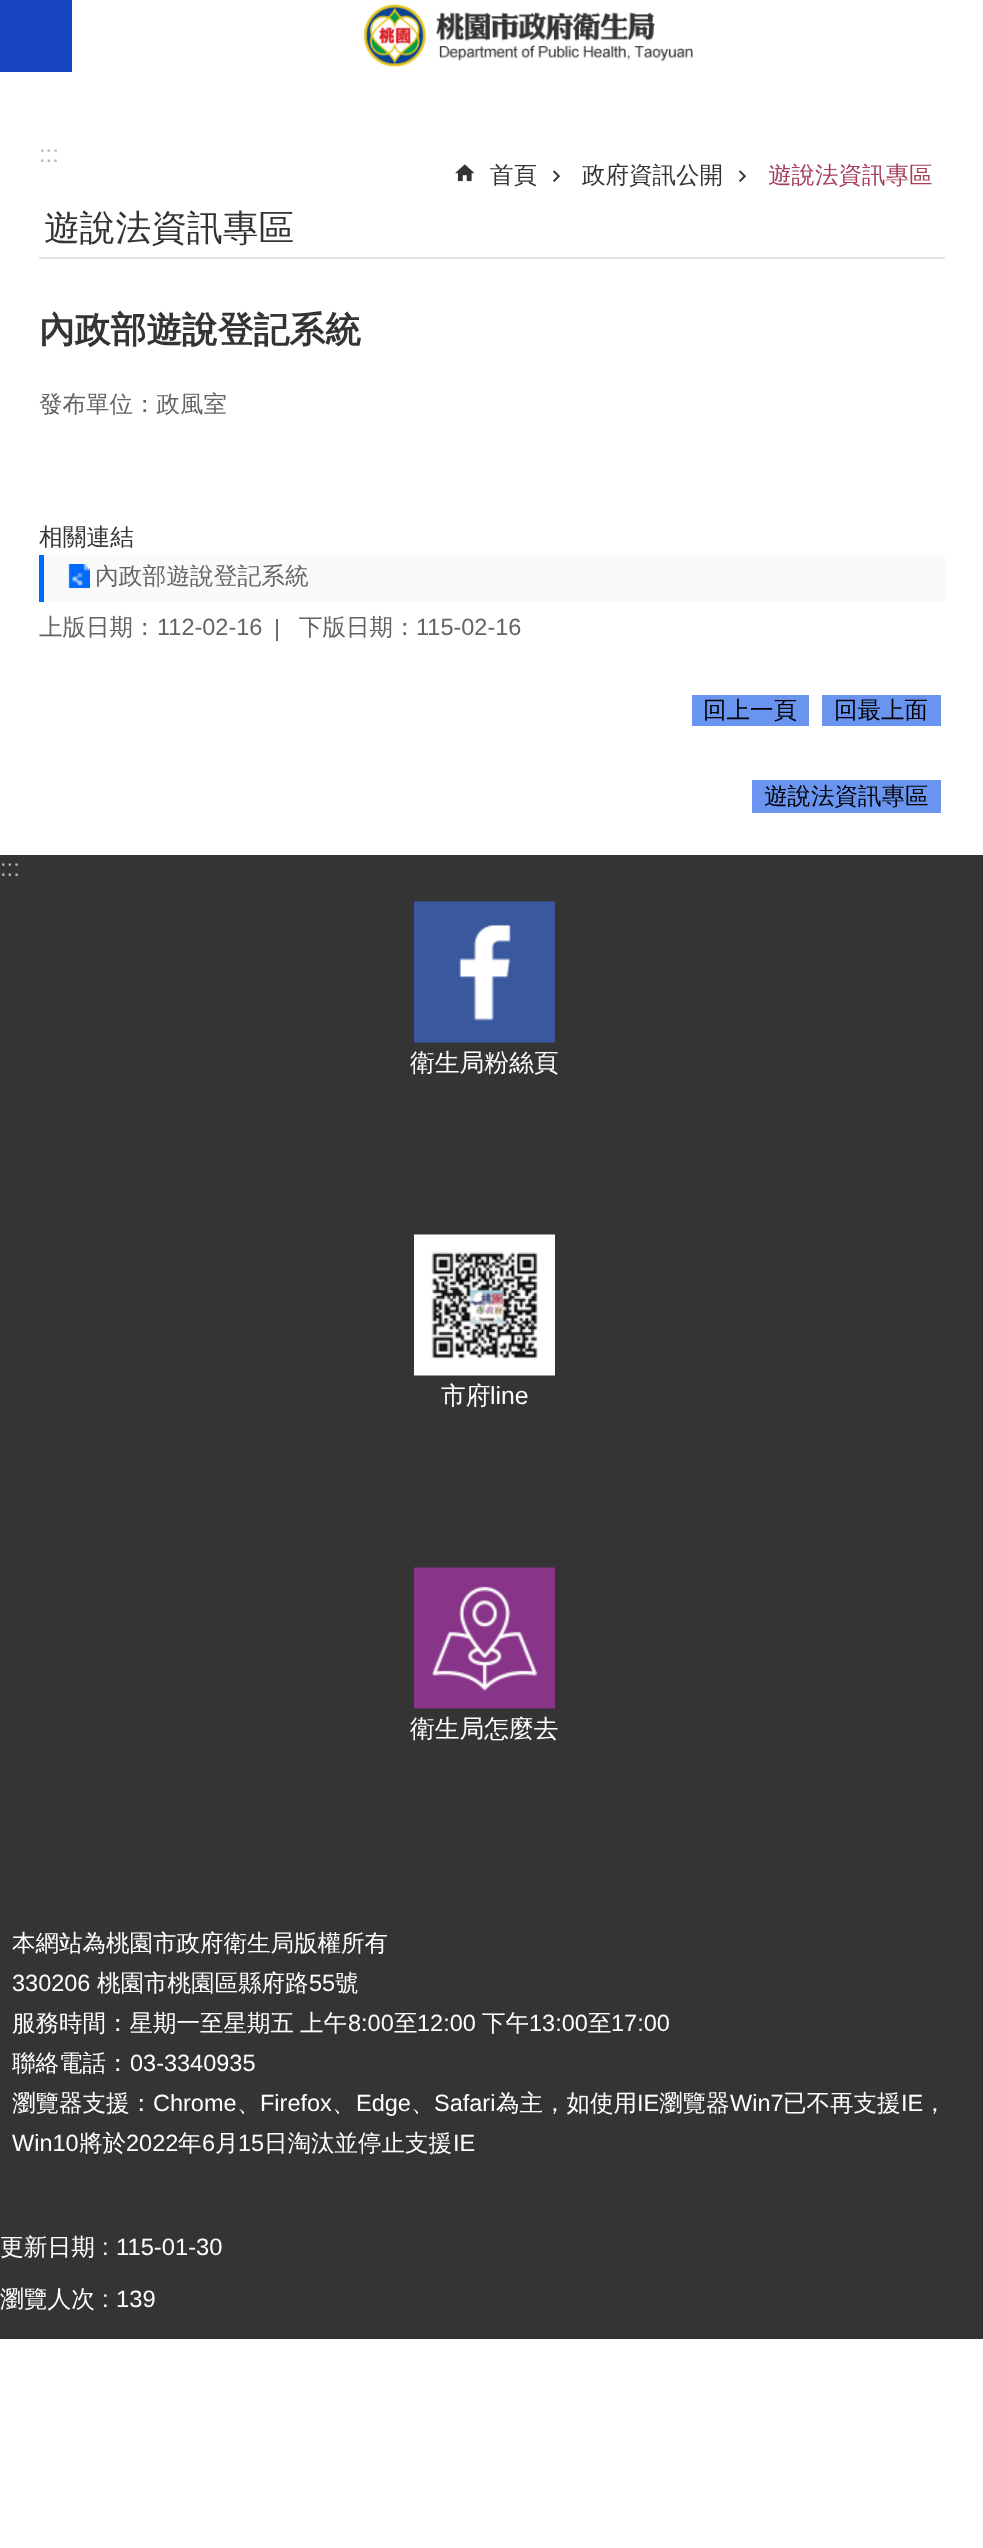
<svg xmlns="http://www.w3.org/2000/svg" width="983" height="2548">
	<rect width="100%" height="100%" fill="#FFFFFF" />
	<rect x="0" y="0" width="72" height="72" fill="#1643C0" />
	<image x="363" y="4" width="330" height="63" href="assets/img1.png" />
	<text x="39" y="162" font-family="Liberation Sans" font-size="23.75" fill="#B6B6B6">:::</text>
	<image x="455" y="164" width="20" height="18" href="assets/img2.png" />
	<text x="490" y="183" font-family="WenQuanYi Zen Hei" font-size="23.5" font-weight="500" fill="#343434">首頁</text>
	<image x="553" y="170" width="8" height="12" href="assets/img3.png" />
	<text x="582" y="183" font-family="WenQuanYi Zen Hei" font-size="23.5" font-weight="500" fill="#343434">政府資訊公開</text>
	<image x="739" y="170" width="8" height="12" href="assets/img3.png" />
	<text x="768" y="183" font-family="WenQuanYi Zen Hei" font-size="23.5" font-weight="500" fill="#A63F5A">遊說法資訊專區</text>
	<rect x="39" y="257" width="906" height="2" fill="#E4E4E4" />
	<text x="44" y="240" font-family="WenQuanYi Zen Hei" font-size="35.75" font-weight="500" fill="#343434">遊說法資訊專區</text>
	<text x="39" y="342" font-family="WenQuanYi Zen Hei" font-size="35.75" font-weight="700" fill="#343434">內政部遊說登記系統</text>
	<text x="39" y="412" font-family="WenQuanYi Zen Hei" font-size="23.5" font-weight="500" fill="#646464">發布單位：政風室</text>
	<text x="39" y="545" font-family="WenQuanYi Zen Hei" font-size="23.75" font-weight="500" fill="#343434">相關連結</text>
	<rect x="44" y="555" width="901" height="47" fill="#FAFAFA" />
	<rect x="39" y="555" width="5" height="47" fill="#0069FF" />
	<image x="68" y="564" width="22" height="24" href="assets/img4.png" />
	<text x="95" y="584" font-family="WenQuanYi Zen Hei" font-size="23.75" font-weight="500" fill="#646464">內政部遊說登記系統</text>
	<text x="39" y="635" font-family="WenQuanYi Zen Hei" font-size="23.5" font-weight="500" fill="#646464">上版日期：</text>
	<g font-family="Liberation Sans" font-size="23.5" fill="#646464">
		<text x="157" y="635">112-02-16</text>
		<text x="274" y="636">|</text>
	</g>
	<text x="299" y="635" font-family="WenQuanYi Zen Hei" font-size="23.5" font-weight="500" fill="#646464">下版日期：</text>
	<text x="416" y="635" font-family="Liberation Sans" font-size="23.5" fill="#646464">115-02-16</text>
	<rect x="692" y="695" width="117" height="31" fill="#6995F1" />
	<text x="703" y="718" font-family="WenQuanYi Zen Hei" font-size="23.5" font-weight="500" fill="#000000">回上一頁</text>
	<rect x="822" y="695" width="119" height="31" fill="#6995F1" />
	<text x="834" y="718" font-family="WenQuanYi Zen Hei" font-size="23.5" font-weight="500" fill="#000000">回最上面</text>
	<rect x="752" y="780" width="189" height="33" fill="#6995F1" />
	<text x="764" y="804" font-family="WenQuanYi Zen Hei" font-size="23.5" font-weight="500" fill="#000000">遊說法資訊專區</text>
	<rect x="0" y="855" width="983" height="1484" fill="#343434" />
	<text x="0" y="876" font-family="Liberation Sans" font-size="23.75" fill="#B6B6B6">:::</text>
	<image x="414" y="901" width="141" height="142" href="assets/img5.png" />
	<text x="410" y="1071" font-family="WenQuanYi Zen Hei" font-size="24.75" font-weight="500" fill="#FFFFFF">衛生局粉絲頁</text>
	<image x="414" y="1234" width="141" height="142" href="assets/img6.png" />
	<text x="441" y="1404" font-family="WenQuanYi Zen Hei" font-size="24.75" font-weight="500" fill="#FFFFFF">市府</text>
	<text x="490" y="1404" font-family="Liberation Sans" font-size="24.75" fill="#FFFFFF">line</text>
	<image x="414" y="1567" width="141" height="142" href="assets/img7.png" />
	<text x="410" y="1737" font-family="WenQuanYi Zen Hei" font-size="24.75" font-weight="500" fill="#FFFFFF">衛生局怎麼去</text>
	<text x="12" y="1951" font-family="WenQuanYi Zen Hei" font-size="23.5" font-weight="500" fill="#FFFFFF">本網站為桃園市政府衛生局版權所有</text>
	<text x="12" y="1991" font-family="Liberation Sans" font-size="23.5" fill="#FFFFFF">330206</text>
	<text x="97" y="1991" font-family="WenQuanYi Zen Hei" font-size="23.5" font-weight="500" fill="#FFFFFF">桃園市桃園區縣府路</text>
	<text x="309" y="1991" font-family="Liberation Sans" font-size="23.5" fill="#FFFFFF">55</text>
	<g font-family="WenQuanYi Zen Hei" font-size="23.5" font-weight="500" fill="#FFFFFF">
		<text x="335" y="1991">號</text>
		<text x="12" y="2031" word-spacing="-1">服務時間：星期一至星期五 上午</text>
	</g>
	<text x="348" y="2031" font-family="Liberation Sans" font-size="23.5" fill="#FFFFFF">8:00</text>
	<text x="394" y="2031" font-family="WenQuanYi Zen Hei" font-size="23.5" font-weight="500" fill="#FFFFFF">至</text>
	<text x="417" y="2031" font-family="Liberation Sans" font-size="23.5" fill="#FFFFFF">12:00</text>
	<text x="482" y="2031" font-family="WenQuanYi Zen Hei" font-size="23.5" font-weight="500" fill="#FFFFFF">下午</text>
	<text x="529" y="2031" font-family="Liberation Sans" font-size="23.5" fill="#FFFFFF">13:00</text>
	<text x="588" y="2031" font-family="WenQuanYi Zen Hei" font-size="23.5" font-weight="500" fill="#FFFFFF">至</text>
	<text x="611" y="2031" font-family="Liberation Sans" font-size="23.5" fill="#FFFFFF">17:00</text>
	<text x="12" y="2071" font-family="WenQuanYi Zen Hei" font-size="23.5" font-weight="500" fill="#FFFFFF">聯絡電話：</text>
	<text x="130" y="2071" font-family="Liberation Sans" font-size="23.5" fill="#FFFFFF">03-3340935</text>
	<text x="12" y="2111" font-family="WenQuanYi Zen Hei" font-size="23.5" font-weight="500" fill="#FFFFFF">瀏覽器支援：</text>
	<text x="153" y="2111" font-family="Liberation Sans" font-size="23.5" fill="#FFFFFF">Chrome</text>
	<text x="237" y="2111" font-family="WenQuanYi Zen Hei" font-size="23.5" font-weight="500" fill="#FFFFFF">、</text>
	<text x="260" y="2111" font-family="Liberation Sans" font-size="23.5" fill="#FFFFFF">Firefox</text>
	<text x="332" y="2111" font-family="WenQuanYi Zen Hei" font-size="23.5" font-weight="500" fill="#FFFFFF">、</text>
	<text x="356" y="2111" font-family="Liberation Sans" font-size="23.5" fill="#FFFFFF">Edge</text>
	<text x="411" y="2111" font-family="WenQuanYi Zen Hei" font-size="23.5" font-weight="500" fill="#FFFFFF">、</text>
	<text x="434" y="2111" font-family="Liberation Sans" font-size="23.5" fill="#FFFFFF">Safari</text>
	<text x="496" y="2111" font-family="WenQuanYi Zen Hei" font-size="23.5" font-weight="500" fill="#FFFFFF">為主，如使用</text>
	<text x="637" y="2111" font-family="Liberation Sans" font-size="23.5" fill="#FFFFFF">IE</text>
	<text x="659" y="2111" font-family="WenQuanYi Zen Hei" font-size="23.5" font-weight="500" fill="#FFFFFF">瀏覽器</text>
	<text x="730" y="2111" font-family="Liberation Sans" font-size="23.5" fill="#FFFFFF">Win7</text>
	<text x="783" y="2111" font-family="WenQuanYi Zen Hei" font-size="23.5" font-weight="500" fill="#FFFFFF">已不再支援</text>
	<text x="901" y="2111" font-family="Liberation Sans" font-size="23.5" fill="#FFFFFF">IE</text>
	<text x="923" y="2111" font-family="WenQuanYi Zen Hei" font-size="23.5" font-weight="500" fill="#FFFFFF">，</text>
	<text x="12" y="2151" font-family="Liberation Sans" font-size="23.5" fill="#FFFFFF">Win10</text>
	<text x="79" y="2151" font-family="WenQuanYi Zen Hei" font-size="23.5" font-weight="500" fill="#FFFFFF">將於</text>
	<text x="126" y="2151" font-family="Liberation Sans" font-size="23.5" fill="#FFFFFF">2022</text>
	<text x="178" y="2151" font-family="WenQuanYi Zen Hei" font-size="23.5" font-weight="500" fill="#FFFFFF">年</text>
	<text x="202" y="2151" font-family="Liberation Sans" font-size="23.5" fill="#FFFFFF">6</text>
	<text x="215" y="2151" font-family="WenQuanYi Zen Hei" font-size="23.5" font-weight="500" fill="#FFFFFF">月</text>
	<text x="238" y="2151" font-family="Liberation Sans" font-size="23.5" fill="#FFFFFF">15</text>
	<text x="264" y="2151" font-family="WenQuanYi Zen Hei" font-size="23.5" font-weight="500" fill="#FFFFFF">日淘汰並停止支援</text>
	<text x="453" y="2151" font-family="Liberation Sans" font-size="23.5" fill="#FFFFFF">IE</text>
	<text x="0" y="2255" font-family="WenQuanYi Zen Hei" font-size="23.75" font-weight="500" fill="#FFFFFF">更新日期</text>
	<g font-family="Liberation Sans" font-size="23.75" fill="#FFFFFF">
		<text x="102" y="2255">:</text>
		<text x="116" y="2255">115-01-30</text>
	</g>
	<text x="0" y="2307" font-family="WenQuanYi Zen Hei" font-size="23.75" font-weight="500" fill="#FFFFFF">瀏覽人次</text>
	<g font-family="Liberation Sans" font-size="23.75" fill="#FFFFFF">
		<text x="102" y="2307">:</text>
		<text x="116" y="2307">139</text>
	</g>
</svg>
